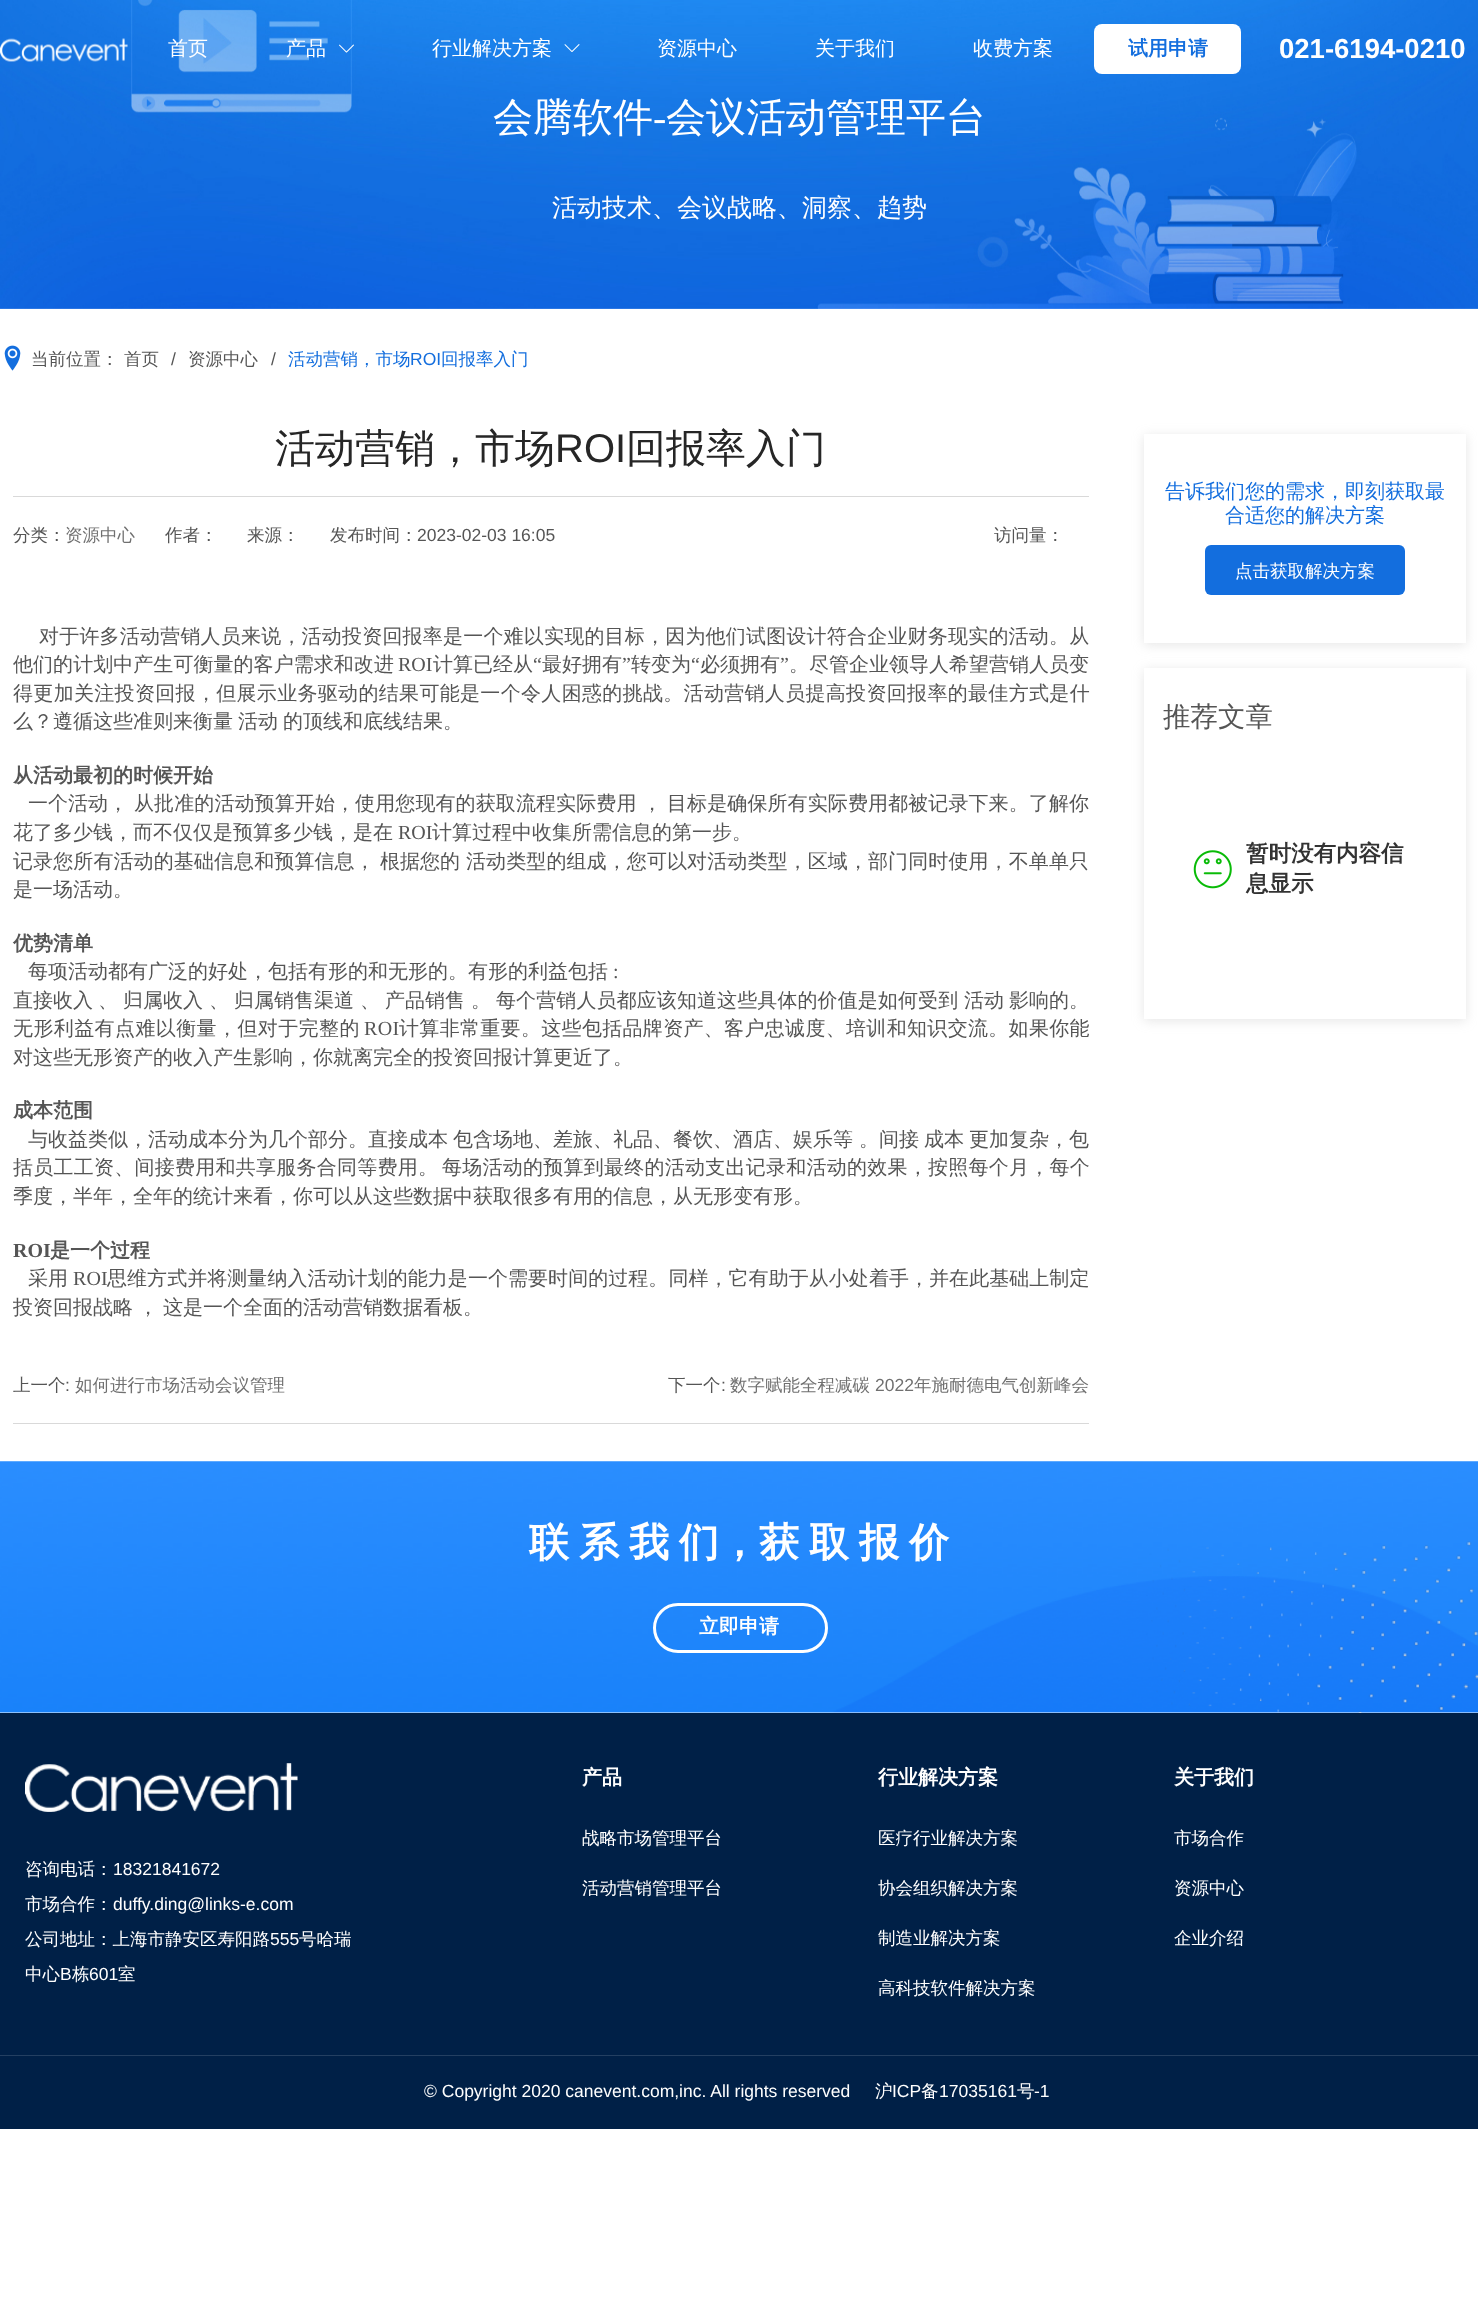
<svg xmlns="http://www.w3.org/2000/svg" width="1478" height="2313">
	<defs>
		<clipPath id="clip1"><rect x="13" y="573" width="1076" height="775" /></clipPath>
		<clipPath id="clip2"><path d="M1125 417H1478V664H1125ZM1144 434H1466V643H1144Z" clip-rule="evenodd" /></clipPath>
		<clipPath id="clip3"><path d="M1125 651H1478V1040H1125ZM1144 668H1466V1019H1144Z" clip-rule="evenodd" /></clipPath>
	</defs>
	<rect width="100%" height="100%" fill="#FFFFFF" />
	<image x="0" y="0" width="1478" height="309" href="assets/img4.png" />
	<image x="0" y="38" width="128" height="24" href="assets/img1.png" />
	<g font-family="WenQuanYi Zen Hei" font-size="20" font-weight="500" fill="#FFFFFF">
		<text x="168" y="55">首页</text>
		<text x="286" y="55">产品</text>
	</g>
	<image x="339" y="44" width="15" height="9" href="assets/img2.png" />
	<text x="432" y="55" font-family="WenQuanYi Zen Hei" font-size="20" font-weight="500" fill="#FFFFFF">行业解决方案</text>
	<image x="564" y="44" width="16" height="8" href="assets/img3.png" />
	<g font-family="WenQuanYi Zen Hei" font-size="20" font-weight="500" fill="#FFFFFF">
		<text x="657" y="55">资源中心</text>
		<text x="815" y="55">关于我们</text>
		<text x="973" y="55">收费方案</text>
	</g>
	<rect x="1094" y="24" width="147" height="50" rx="8" fill="#FFFFFF" />
	<text x="1128" y="55" font-family="WenQuanYi Zen Hei" font-size="20" font-weight="700" fill="#136EDE">试用申请</text>
	<text x="1279" y="58" font-family="Liberation Sans" font-size="27.5" font-weight="700" fill="#FFFFFF">021-6194-0210</text>
	<text x="493" y="131" font-family="WenQuanYi Zen Hei" font-size="40" font-weight="500" fill="#FFFFFF">会腾软件</text>
	<text x="653" y="131" font-family="Liberation Serif" font-size="40" fill="#FFFFFF">-</text>
	<text x="666" y="131" font-family="WenQuanYi Zen Hei" font-size="40" font-weight="500" fill="#FFFFFF">会议活动管理平台</text>
	<text x="552" y="216" font-family="WenQuanYi Zen Hei" font-size="25" font-weight="500" fill="#FFFFFF">活动技术、会议战略、洞察、趋势</text>
	<image x="4" y="345" width="17" height="26" href="assets/img5.png" />
	<g font-family="WenQuanYi Zen Hei" font-size="17.5" font-weight="500" fill="#555555">
		<text x="31" y="365">当前位置：</text>
		<text x="124" y="365">首页</text>
	</g>
	<text x="171" y="365" font-family="Liberation Sans" font-size="17.5" fill="#555555">/</text>
	<text x="188" y="365" font-family="WenQuanYi Zen Hei" font-size="17.5" font-weight="500" fill="#555555">资源中心</text>
	<text x="271" y="365" font-family="Liberation Sans" font-size="17.5" fill="#555555">/</text>
	<text x="288" y="365" font-family="WenQuanYi Zen Hei" font-size="17.5" font-weight="500" fill="#136EDE">活动营销，市场</text>
	<text x="410" y="365" font-family="Liberation Sans" font-size="17.5" fill="#136EDE">ROI</text>
	<text x="441" y="365" font-family="WenQuanYi Zen Hei" font-size="17.5" font-weight="500" fill="#136EDE">回报率入门</text>
	<text x="275" y="462" font-family="WenQuanYi Zen Hei" font-size="40" font-weight="500" fill="#262626">活动营销，市场</text>
	<text x="555" y="462" font-family="Liberation Sans" font-size="40" fill="#262626">ROI</text>
	<text x="626" y="462" font-family="WenQuanYi Zen Hei" font-size="40" font-weight="500" fill="#262626">回报率入门</text>
	<rect x="13" y="496" width="1076" height="1" fill="#D9D9D9" />
	<text x="13" y="541" font-family="WenQuanYi Zen Hei" font-size="17.5" font-weight="500" fill="#555555">分类：</text>
	<text x="65" y="541" font-family="WenQuanYi Zen Hei" font-size="17.5" font-weight="500" fill="#707070">资源中心</text>
	<g font-family="WenQuanYi Zen Hei" font-size="17.5" font-weight="500" fill="#555555">
		<text x="165" y="541">作者：</text>
		<text x="247" y="541">来源：</text>
		<text x="330" y="541">发布时间：</text>
	</g>
	<text x="417" y="541" font-family="Liberation Sans" font-size="17.5" fill="#555555">2023-02-03 16:05</text>
	<text x="994" y="541" font-family="WenQuanYi Zen Hei" font-size="17.5" font-weight="500" fill="#555555">访问量：</text>
	<text x="39" y="643" font-family="WenQuanYi Zen Hei" font-size="20" font-weight="500" letter-spacing="0.2" fill="#555555">对于许多活动营销人员来说，活动投资回报率是一个难以实现的目标，因为他们试图设计符合企业财务现实的活动。从</text>
	<text x="13" y="671" font-family="WenQuanYi Zen Hei" font-size="20" font-weight="500" letter-spacing="0.05" fill="#555555">他们的计划中产生可衡量的客户需求和改进</text>
	<text x="398" y="671" font-family="Liberation Serif" font-size="20" fill="#555555">ROI</text>
	<text x="433" y="671" font-family="WenQuanYi Zen Hei" font-size="20" font-weight="500" fill="#555555">计算已经从</text>
	<text x="533" y="671" font-family="Liberation Serif" font-size="20" fill="#555555">“</text>
	<text x="542" y="671" font-family="WenQuanYi Zen Hei" font-size="20" font-weight="500" fill="#555555">最好拥有</text>
	<text x="622" y="671" font-family="Liberation Serif" font-size="20" fill="#555555">”</text>
	<text x="631" y="671" font-family="WenQuanYi Zen Hei" font-size="20" font-weight="500" fill="#555555">转变为</text>
	<text x="691" y="671" font-family="Liberation Serif" font-size="20" fill="#555555">“</text>
	<text x="700" y="671" font-family="WenQuanYi Zen Hei" font-size="20" font-weight="500" fill="#555555">必须拥有</text>
	<text x="780" y="671" font-family="Liberation Serif" font-size="20" fill="#555555">”</text>
	<text x="789" y="671" font-family="WenQuanYi Zen Hei" font-size="20" font-weight="500" fill="#555555">。尽管企业领导人希望营销人员变</text>
	<text x="13" y="700" font-family="WenQuanYi Zen Hei" font-size="20" font-weight="500" letter-spacing="0.32" fill="#555555">得更加关注投资回报，但展示业务驱动的结果可能是一个令人困惑的挑战。活动营销人员提高投资回报率的最佳方式是什</text>
	<g font-family="WenQuanYi Zen Hei" font-size="20" font-weight="500" fill="#555555">
		<text x="13" y="728">么？遵循这些准则来衡量</text>
		<text x="238" y="728">活动</text>
		<text x="283" y="728">的顶线和底线结果。</text>
	</g>
	<text x="13" y="782" font-family="WenQuanYi Zen Hei" font-size="20" font-weight="700" fill="#555555">从活动最初的时候开始</text>
	<text x="28" y="810" font-family="WenQuanYi Zen Hei" font-size="20" font-weight="500" fill="#555555">一个活动，</text>
	<text x="134" y="810" font-family="WenQuanYi Zen Hei" font-size="20" font-weight="500" letter-spacing="0.1" fill="#555555">从批准的活动预算开始，使用您现有的获取流程实际费用</text>
	<text x="642" y="810" font-family="WenQuanYi Zen Hei" font-size="20" font-weight="500" fill="#555555">，</text>
	<text x="667" y="810" font-family="WenQuanYi Zen Hei" font-size="20" font-weight="500" letter-spacing="0.1" fill="#555555">目标是确保所有实际费用都被记录下来。了解你</text>
	<text x="13" y="839" font-family="WenQuanYi Zen Hei" font-size="20" font-weight="500" fill="#555555">花了多少钱，而不仅仅是预算多少钱，是在</text>
	<text x="398" y="839" font-family="Liberation Serif" font-size="20" fill="#555555">ROI</text>
	<text x="432" y="839" font-family="WenQuanYi Zen Hei" font-size="20" font-weight="500" fill="#555555">计算过程中收集所需信息的第一步。</text>
	<text x="13" y="868" font-family="WenQuanYi Zen Hei" font-size="20" font-weight="500" letter-spacing="0.1" fill="#555555">记录您所有活动的基础信息和预算信息，</text>
	<text x="380" y="868" font-family="WenQuanYi Zen Hei" font-size="20" font-weight="500" fill="#555555">根据您的</text>
	<text x="466" y="868" font-family="WenQuanYi Zen Hei" font-size="20" font-weight="500" letter-spacing="0.1" fill="#555555">活动类型的组成，您可以对活动类型，区域，部门同时使用，不单单只</text>
	<text x="13" y="896" font-family="WenQuanYi Zen Hei" font-size="20" font-weight="500" fill="#555555">是一场活动。</text>
	<text x="13" y="950" font-family="WenQuanYi Zen Hei" font-size="20" font-weight="700" fill="#555555">优势清单</text>
	<text x="28" y="978" font-family="WenQuanYi Zen Hei" font-size="20" font-weight="500" fill="#555555">每项活动都有广泛的好处，包括有形的和无形的。有形的利益包括</text>
	<text x="613" y="978" font-family="Liberation Serif" font-size="20" fill="#555555">:</text>
	<g font-family="WenQuanYi Zen Hei" font-size="20" font-weight="500" fill="#555555">
		<text x="13" y="1007">直接收入</text>
		<text x="98" y="1007">、</text>
		<text x="123" y="1007">归属收入</text>
		<text x="209" y="1007">、</text>
		<text x="234" y="1007">归属销售渠道</text>
		<text x="360" y="1007">、</text>
		<text x="385" y="1007">产品销售</text>
		<text x="471" y="1007">。</text>
	</g>
	<text x="496" y="1007" font-family="WenQuanYi Zen Hei" font-size="20" font-weight="500" letter-spacing="0.1" fill="#555555">每个营销人员都应该知道这些具体的价值是如何受到</text>
	<g font-family="WenQuanYi Zen Hei" font-size="20" font-weight="500" fill="#555555">
		<text x="964" y="1007">活动</text>
		<text x="1009" y="1007">影响的。</text>
	</g>
	<text x="13" y="1035" font-family="WenQuanYi Zen Hei" font-size="20" font-weight="500" letter-spacing="0.4" fill="#555555">无形利益有点难以衡量，但对于完整的</text>
	<text x="364" y="1035" font-family="Liberation Serif" font-size="20" letter-spacing="0.32" fill="#555555">ROI</text>
	<text x="399" y="1035" font-family="WenQuanYi Zen Hei" font-size="20" font-weight="500" letter-spacing="0.32" fill="#555555">计算非常重要。这些包括品牌资产、客户忠诚度、培训和知识交流。如果你能</text>
	<text x="13" y="1064" font-family="WenQuanYi Zen Hei" font-size="20" font-weight="500" fill="#555555">对这些无形资产的收入产生影响，你就离完全的投资回报计算更近了。</text>
	<text x="13" y="1117" font-family="WenQuanYi Zen Hei" font-size="20" font-weight="700" fill="#555555">成本范围</text>
	<g font-family="WenQuanYi Zen Hei" font-size="20" font-weight="500" fill="#555555">
		<text x="28" y="1146">与收益类似，活动成本分为几个部分。直接成本</text>
		<text x="453" y="1146">包含场地、差旅、礼品、餐饮、酒店、娱乐等</text>
		<text x="859" y="1146">。间接</text>
		<text x="924" y="1146">成本</text>
		<text x="969" y="1146">更加复杂，包</text>
	</g>
	<g font-family="WenQuanYi Zen Hei" font-size="20" font-weight="500" letter-spacing="0.25" fill="#555555">
		<text x="13" y="1174">括员工工资、间接费用和共享服务合同等费用。</text>
		<text x="442" y="1174">每场活动的预算到最终的活动支出记录和活动的效果，按照每个月，每个</text>
	</g>
	<text x="13" y="1203" font-family="WenQuanYi Zen Hei" font-size="20" font-weight="500" fill="#555555">季度，半年，全年的统计来看，你可以从这些数据中获取很多有用的信息，从无形变有形。</text>
	<text x="13" y="1257" font-family="Liberation Serif" font-size="20" font-weight="700" fill="#555555">ROI</text>
	<text x="50" y="1257" font-family="WenQuanYi Zen Hei" font-size="20" font-weight="700" fill="#555555">是一个过程</text>
	<text x="28" y="1285" font-family="WenQuanYi Zen Hei" font-size="20" font-weight="500" fill="#555555">采用</text>
	<text x="73" y="1285" font-family="Liberation Serif" font-size="20" letter-spacing="0.05" fill="#555555">ROI</text>
	<text x="107" y="1285" font-family="WenQuanYi Zen Hei" font-size="20" font-weight="500" letter-spacing="0.05" fill="#555555">思维方式并将测量纳入活动计划的能力是一个需要时间的过程。同样，它有助于从小处着手，并在此基础上制定</text>
	<g clip-path="url(#clip1)">
		<text x="13" y="1314" font-family="WenQuanYi Zen Hei" font-size="20" font-weight="500" fill="#555555">投资回报战略</text>
	</g>
	<g font-family="WenQuanYi Zen Hei" font-size="20" font-weight="500" fill="#555555">
		<text x="138" y="1314">，</text>
		<text x="163" y="1314">这是一个全面的活动营销数据看板。</text>
	</g>
	<rect x="13" y="1423" width="1076" height="1" fill="#D9D9D9" />
	<text x="13" y="1391" font-family="WenQuanYi Zen Hei" font-size="17.5" font-weight="500" fill="#555555">上一个</text>
	<text x="65" y="1391" font-family="Liberation Sans" font-size="17.5" fill="#555555">:</text>
	<text x="75" y="1391" font-family="WenQuanYi Zen Hei" font-size="17.5" font-weight="500" fill="#707070">如何进行市场活动会议管理</text>
	<text x="668" y="1391" font-family="WenQuanYi Zen Hei" font-size="17.5" font-weight="500" fill="#555555">下一个</text>
	<text x="721" y="1391" font-family="Liberation Sans" font-size="17.5" fill="#555555">:</text>
	<text x="730" y="1391" font-family="WenQuanYi Zen Hei" font-size="17.5" font-weight="500" fill="#707070">数字赋能全程减碳</text>
	<text x="875" y="1391" font-family="Liberation Sans" font-size="17.5" fill="#707070">2022</text>
	<text x="914" y="1391" font-family="WenQuanYi Zen Hei" font-size="17.5" font-weight="500" fill="#707070">年施耐德电气创新峰会</text>
	<g clip-path="url(#clip2)">
		<rect x="1144" y="436" width="322" height="209" fill="#A7A5A5" fill-opacity="0.28" filter="blur(6px)" />
	</g>
	<g font-family="WenQuanYi Zen Hei" font-size="20" font-weight="500" fill="#136EDE">
		<text x="1165" y="498">告诉我们您的需求，即刻获取最</text>
		<text x="1225" y="522">合适您的解决方案</text>
	</g>
	<rect x="1205" y="545" width="200" height="50" rx="6" fill="#136EDE" />
	<text x="1235" y="577" font-family="WenQuanYi Zen Hei" font-size="17.5" font-weight="500" fill="#FFFFFF">点击获取解决方案</text>
	<g clip-path="url(#clip3)">
		<rect x="1144" y="670" width="322" height="351" fill="#A7A5A5" fill-opacity="0.28" filter="blur(6px)" />
	</g>
	<text x="1163" y="726" font-family="WenQuanYi Zen Hei" font-size="27.5" font-weight="500" fill="#555555">推荐文章</text>
	<image x="1193" y="850" width="39" height="39" href="assets/img6.png" />
	<g font-family="WenQuanYi Zen Hei" font-size="22.5" font-weight="700" fill="#333333">
		<text x="1246" y="861">暂时没有内容信</text>
		<text x="1246" y="891">息显示</text>
	</g>
	<image x="0" y="1461" width="1478" height="252" href="assets/img7.png" />
	<text x="529" y="1556" word-spacing="-2" font-family="WenQuanYi Zen Hei" font-size="40" font-weight="700" fill="#FFFFFF">联 系 我 们，获 取 报 价</text>
	<rect x="654.5" y="1604.5" width="172" height="47" rx="23.5" fill="none" stroke="#FFFFFF" stroke-width="3" />
	<text x="699" y="1633" font-family="WenQuanYi Zen Hei" font-size="20" font-weight="700" fill="#FFFFFF">立即申请</text>
	<rect x="0" y="1713" width="1478" height="416" fill="#002047" />
	<image x="25" y="1763" width="273" height="49" href="assets/img8.png" />
	<text x="25" y="1875" font-family="WenQuanYi Zen Hei" font-size="17.5" font-weight="500" fill="#FFFFFF">咨询电话：</text>
	<text x="113" y="1875" font-family="Liberation Sans" font-size="17.5" fill="#FFFFFF">18321841672</text>
	<text x="25" y="1910" font-family="WenQuanYi Zen Hei" font-size="17.5" font-weight="500" fill="#FFFFFF">市场合作：</text>
	<text x="113" y="1910" font-family="Liberation Sans" font-size="17.5" fill="#FFFFFF">duffy.ding@links-e.com</text>
	<text x="25" y="1945" font-family="WenQuanYi Zen Hei" font-size="17.5" font-weight="500" fill="#FFFFFF">公司地址：上海市静安区寿阳路</text>
	<text x="270" y="1945" font-family="Liberation Sans" font-size="17.5" fill="#FFFFFF">555</text>
	<g font-family="WenQuanYi Zen Hei" font-size="17.5" font-weight="500" fill="#FFFFFF">
		<text x="299" y="1945">号哈瑞</text>
		<text x="25" y="1980">中心</text>
	</g>
	<text x="60" y="1980" font-family="Liberation Sans" font-size="17.5" fill="#FFFFFF">B</text>
	<text x="72" y="1980" font-family="WenQuanYi Zen Hei" font-size="17.5" font-weight="500" fill="#FFFFFF">栋</text>
	<text x="89" y="1980" font-family="Liberation Sans" font-size="17.5" fill="#FFFFFF">601</text>
	<text x="118" y="1980" font-family="WenQuanYi Zen Hei" font-size="17.5" font-weight="500" fill="#FFFFFF">室</text>
	<text x="582" y="1784" font-family="WenQuanYi Zen Hei" font-size="20" font-weight="700" fill="#FFFFFF">产品</text>
	<g font-family="WenQuanYi Zen Hei" font-size="17.5" font-weight="500" fill="#FFFFFF">
		<text x="582" y="1844">战略市场管理平台</text>
		<text x="582" y="1894">活动营销管理平台</text>
	</g>
	<text x="878" y="1784" font-family="WenQuanYi Zen Hei" font-size="20" font-weight="700" fill="#FFFFFF">行业解决方案</text>
	<g font-family="WenQuanYi Zen Hei" font-size="17.5" font-weight="500" fill="#FFFFFF">
		<text x="878" y="1844">医疗行业解决方案</text>
		<text x="878" y="1894">协会组织解决方案</text>
		<text x="878" y="1944">制造业解决方案</text>
		<text x="878" y="1994">高科技软件解决方案</text>
	</g>
	<text x="1174" y="1784" font-family="WenQuanYi Zen Hei" font-size="20" font-weight="700" fill="#FFFFFF">关于我们</text>
	<g font-family="WenQuanYi Zen Hei" font-size="17.5" font-weight="500" fill="#FFFFFF">
		<text x="1174" y="1844">市场合作</text>
		<text x="1174" y="1894">资源中心</text>
		<text x="1174" y="1944">企业介绍</text>
	</g>
	<rect x="0" y="2055" width="1478" height="1" fill="#243F61" />
	<text x="424" y="2097" font-family="Liberation Sans" font-size="17.5" fill="#FFFFFF">© Copyright 2020 canevent.com,inc. All rights reserved</text>
	<text x="875" y="2097" font-family="WenQuanYi Zen Hei" font-size="17.5" font-weight="500" fill="#FFFFFF">沪</text>
	<text x="892" y="2097" font-family="Liberation Sans" font-size="17.5" fill="#FFFFFF">ICP</text>
	<text x="921" y="2097" font-family="WenQuanYi Zen Hei" font-size="17.5" font-weight="500" fill="#FFFFFF">备</text>
	<text x="939" y="2097" font-family="Liberation Sans" font-size="17.5" fill="#FFFFFF">17035161</text>
	<text x="1017" y="2097" font-family="WenQuanYi Zen Hei" font-size="17.5" font-weight="500" fill="#FFFFFF">号</text>
	<text x="1034" y="2097" font-family="Liberation Sans" font-size="17.5" fill="#FFFFFF">-1</text>
</svg>
